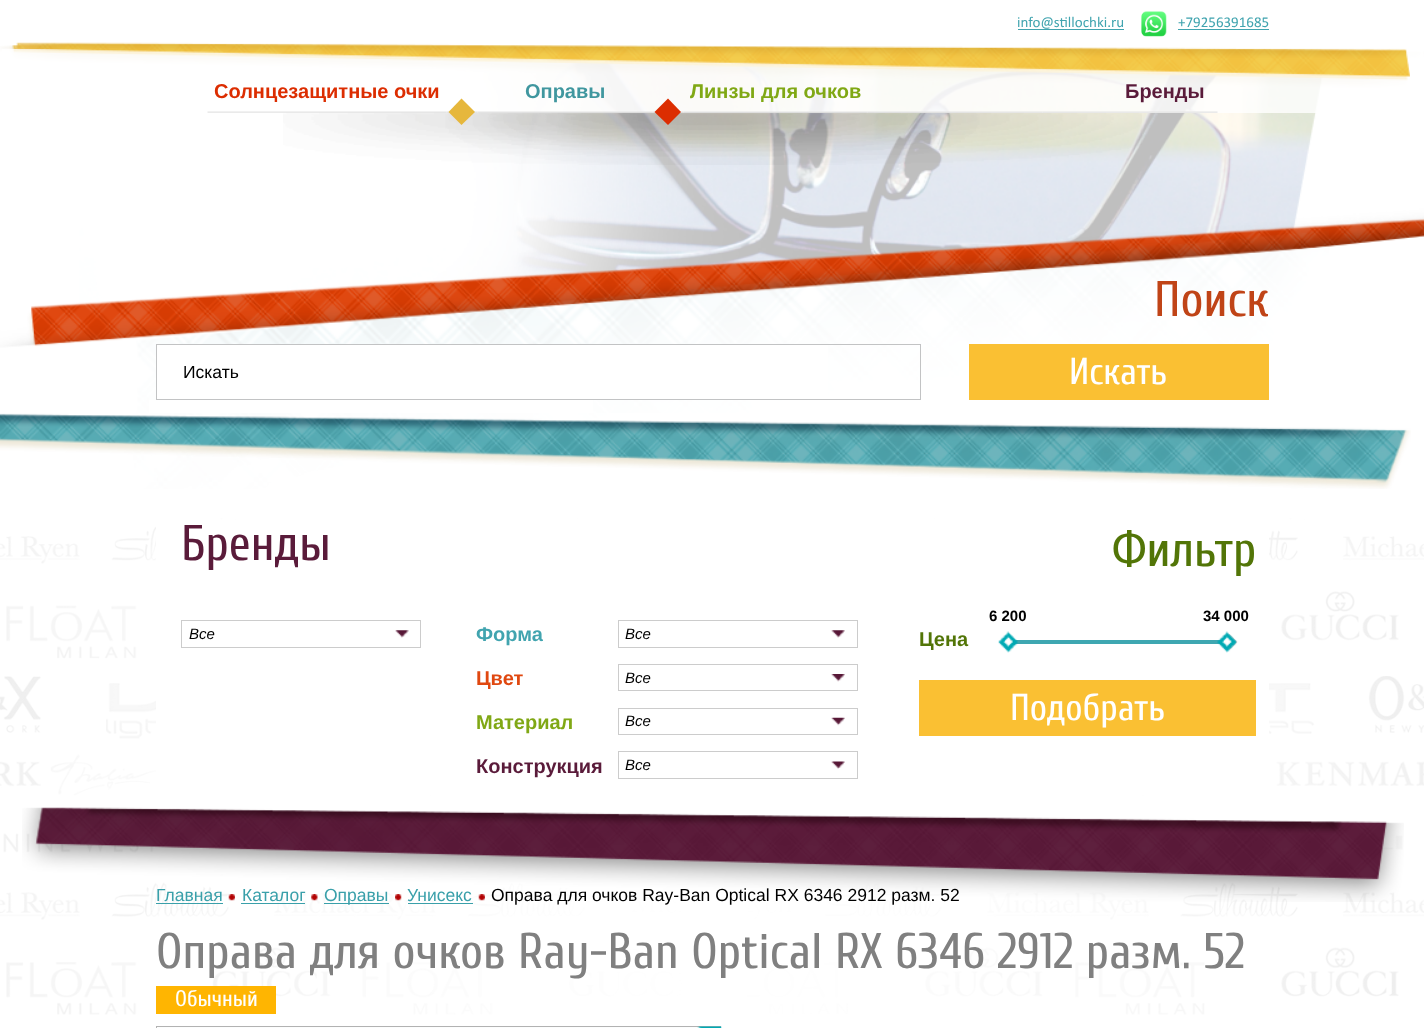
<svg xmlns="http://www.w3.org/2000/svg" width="1424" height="1028">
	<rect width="100%" height="100%" fill="#FFFFFF" />
	<image x="0" y="513" width="1424" height="502" href="assets/img1.png" />
	<text x="1017" y="27" font-family="Calibri" font-size="15" fill="#41A4AF">info@stillochki.ru</text>
	<rect x="1018" y="29" width="106" height="1" fill="#41A4AF" />
	<image x="1141" y="11" width="26" height="26" href="assets/img2.png" />
	<text x="1178" y="27" font-family="Calibri" font-size="15" fill="#41A4AF">+79256391685</text>
	<rect x="1178" y="29" width="91" height="1" fill="#41A4AF" />
	<image x="0" y="45" width="1424" height="404" href="assets/img3.png" />
	<rect x="2" y="49" width="1421" height="64" fill="#FFFFFF" fill-opacity="0.8" />
	<image x="16" y="42" width="1394" height="35" href="assets/img4.png" />
	<text x="214" y="98" font-family="Liberation Sans" font-size="20" font-weight="700" fill="#DC2D01">Солнцезащитные очки</text>
	<text x="525" y="98" font-family="Liberation Sans" font-size="20" font-weight="700" fill="#40979F">Оправы</text>
	<text x="690" y="98" font-family="Liberation Sans" font-size="20" font-weight="700" fill="#80A815">Линзы для очков</text>
	<text x="1125" y="98" font-family="Liberation Sans" font-size="20" font-weight="700" fill="#5A1B3A">Бренды</text>
	<image x="207" y="111" width="240" height="2" href="assets/img5.png" />
	<image x="446" y="111" width="32" height="2" href="assets/img6.png" />
	<image x="477" y="111" width="176" height="2" href="assets/img7.png" />
	<image x="652" y="111" width="32" height="2" href="assets/img8.png" />
	<image x="684" y="111" width="184" height="2" href="assets/img9.png" />
	<image x="867" y="111" width="176" height="2" href="assets/img10.png" />
	<image x="1042" y="111" width="176" height="2" href="assets/img11.png" />
	<image x="283" y="112" width="859" height="53" href="assets/img12.png" />
	<path d="M448.5 112L461.5 98.5L475 112L461.5 125Z" fill="#E6B73C" />
	<path d="M654.5 112L668 98.5L681 112L668 125Z" fill="#DC2D01" />
	<text x="1154" y="316" font-family="Cuprum" font-size="50" fill="#C04417">Поиск</text>
	<rect x="157" y="345" width="671" height="54" fill="#FFFFFF" />
	<rect x="156.5" y="344.5" width="764" height="55" fill="none" stroke="#C2C3C4" />
	<text x="183" y="378" font-family="Liberation Sans" font-size="17.5" fill="#000000">Искать</text>
	<rect x="969" y="344" width="300" height="56" fill="#FAC033" />
	<text x="1069" y="384" font-family="Cuprum" font-size="37.5" fill="#FFFFFF">Искать</text>
	<image x="0" y="413" width="1411" height="76" href="assets/img13.png" />
	<rect x="149" y="400" width="444" height="13" fill="#FFFFFF" />
	<rect x="156" y="526" width="1113" height="269" fill="#FFFFFF" />
	<text x="181" y="560" font-family="Cuprum" font-size="50" fill="#5A1B3A">Бренды</text>
	<image x="395" y="630" width="14" height="8" href="assets/img14.png" />
	<rect x="181.5" y="620.5" width="239" height="27" fill="none" stroke="#CCCCCC" />
	<text x="189" y="639" font-family="Liberation Sans" font-size="15" font-style="italic" fill="#000000">Все</text>
	<text x="476" y="641" font-family="Liberation Sans" font-size="20" font-weight="700" fill="#41A4AF">Форма</text>
	<image x="831" y="630" width="14" height="8" href="assets/img15.png" />
	<rect x="618.5" y="620.5" width="239" height="27" fill="none" stroke="#CCCCCC" />
	<text x="625" y="639" font-family="Liberation Sans" font-size="15" font-style="italic" fill="#000000">Все</text>
	<text x="476" y="685" font-family="Liberation Sans" font-size="20" font-weight="700" fill="#E04810">Цвет</text>
	<image x="831" y="674" width="14" height="8" href="assets/img16.png" />
	<rect x="618.5" y="664.5" width="239" height="26" fill="none" stroke="#CCCCCC" />
	<text x="625" y="683" font-family="Liberation Sans" font-size="15" font-style="italic" fill="#000000">Все</text>
	<text x="476" y="729" font-family="Liberation Sans" font-size="20" font-weight="700" fill="#80A815">Материал</text>
	<image x="831" y="717" width="14" height="9" href="assets/img17.png" />
	<rect x="618.5" y="708.5" width="239" height="26" fill="none" stroke="#CCCCCC" />
	<text x="625" y="726" font-family="Liberation Sans" font-size="15" font-style="italic" fill="#000000">Все</text>
	<text x="476" y="773" font-family="Liberation Sans" font-size="20" font-weight="700" fill="#5A1B3A">Конструкция</text>
	<image x="831" y="761" width="14" height="8" href="assets/img18.png" />
	<rect x="618.5" y="751.5" width="239" height="27" fill="none" stroke="#CCCCCC" />
	<text x="625" y="770" font-family="Liberation Sans" font-size="15" font-style="italic" fill="#000000">Все</text>
	<text x="1112" y="566" font-family="Cuprum" font-size="50" fill="#527507">Фильтр</text>
	<g font-family="Liberation Sans" font-size="15" font-weight="700" fill="#000000">
		<text x="989" y="621">6 200</text>
		<text x="1203" y="621">34 000</text>
	</g>
	<rect x="1008" y="640" width="218" height="4" fill="#3EA7B1" />
	<image x="998" y="631" width="20" height="22" href="assets/img19.png" />
	<path d="M1221.5 642L1229.5 634L1237.5 642L1229.5 650Z" fill="#CCCCCC" />
	<image x="1217" y="631" width="20" height="22" href="assets/img20.png" />
	<text x="919" y="646" font-family="Liberation Sans" font-size="20" font-weight="700" fill="#527507">Цена</text>
	<rect x="919" y="680" width="337" height="56" fill="#FAC033" />
	<text x="1010" y="720" font-family="Cuprum" font-size="37.5" fill="#FFFFFF">Подобрать</text>
	<image x="22" y="807" width="1382" height="95" href="assets/img21.png" />
	<text x="156" y="901" font-family="Liberation Sans" font-size="17.5" fill="#3AA0AA">Главная</text>
	<rect x="156" y="903" width="67" height="1" fill="#3AA0AA" />
	<image x="228" y="894" width="7" height="7" href="assets/img22.png" />
	<text x="242" y="901" font-family="Liberation Sans" font-size="17.5" fill="#3AA0AA">Каталог</text>
	<rect x="241" y="903" width="64" height="1" fill="#3AA0AA" />
	<image x="311" y="894" width="7" height="7" href="assets/img23.png" />
	<rect x="324" y="903" width="65" height="1" fill="#3AA0AA" />
	<text x="324" y="901" font-family="Liberation Sans" font-size="17.5" fill="#3AA0AA">Оправы</text>
	<image x="395" y="894" width="7" height="7" href="assets/img24.png" />
	<text x="407" y="901" font-family="Liberation Sans" font-size="17.5" fill="#3AA0AA">Унисекс</text>
	<rect x="408" y="903" width="65" height="1" fill="#3AA0AA" />
	<image x="478" y="894" width="7" height="7" href="assets/img25.png" />
	<text x="491" y="901" font-family="Liberation Sans" font-size="17.5" fill="#000000">Оправа для очков Ray-Ban Optical RX 6346 2912 разм. 52</text>
	<text x="156" y="968" font-family="Cuprum" font-size="50" fill="#808080">Оправа для очков Ray-Ban Optical RX 6346 2912 разм. 52</text>
	<rect x="156" y="986" width="120" height="28" fill="#FFB501" />
	<text x="175" y="1006" font-family="Cuprum" font-size="22.5" fill="#FFFFFF">Обычный</text>
	<rect x="156" y="1027" width="546" height="1" fill="#FCFDFD" />
	<rect x="156.5" y="1026.5" width="564" height="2" fill="none" stroke="#B2B2B2" />
	<image x="697" y="1026" width="25" height="2" href="assets/img26.png" />
</svg>
